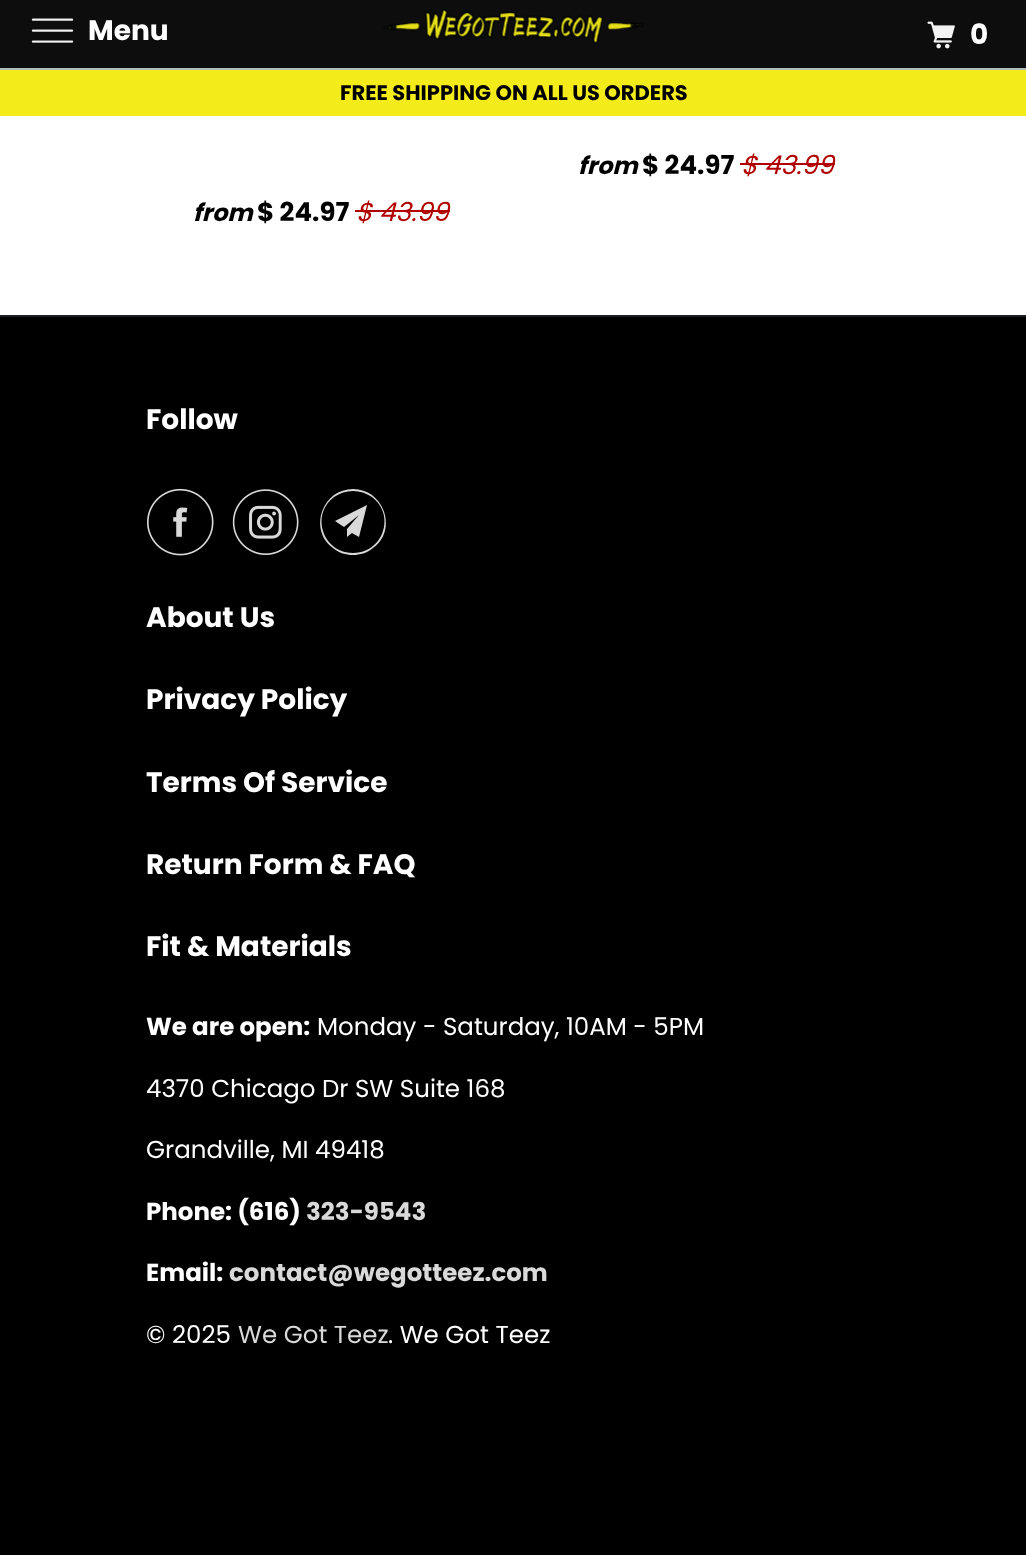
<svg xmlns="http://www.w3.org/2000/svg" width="1026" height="1555">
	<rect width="100%" height="100%" fill="#FFFFFF" />
	<rect x="0" y="0" width="1026" height="70" fill="#000000" fill-opacity="0.95" />
	<rect x="0" y="68" width="1026" height="2" fill="#B8C6C6" fill-opacity="0.95" />
	<image x="31" y="18" width="43" height="25" href="assets/img1.png" />
	<text x="88" y="40" font-family="Poppins" font-size="28" font-weight="700" fill="#FFFFFF">Menu</text>
	<image x="383" y="9" width="261" height="35" href="assets/img2.png" />
	<image x="927" y="21" width="28" height="28" href="assets/img3.png" />
	<text x="970" y="44" font-family="Poppins" font-size="28" font-weight="700" fill="#FFFFFF">0</text>
	<rect x="0" y="70" width="1026" height="46" fill="#F3EC1A" />
	<text x="340" y="100" font-family="Poppins" font-size="21" font-weight="700" fill="#000000">FREE SHIPPING ON ALL US ORDERS</text>
	<text x="578" y="174" font-family="Poppins" font-size="24" font-weight="700" font-style="italic" fill="#000000">from</text>
	<text x="642" y="174" font-family="Poppins" font-size="26" font-weight="700" fill="#000000">$ 24.97</text>
	<text x="741" y="174" font-family="Poppins" font-size="26" font-style="italic" fill="#B10000">$ 43.99</text>
	<rect x="740" y="163" width="95" height="2" fill="#B10000" />
	<text x="193" y="221" font-family="Poppins" font-size="24" font-weight="700" font-style="italic" fill="#000000">from</text>
	<text x="257" y="221" font-family="Poppins" font-size="26" font-weight="700" fill="#000000">$ 24.97</text>
	<text x="356" y="221" font-family="Poppins" font-size="26" font-style="italic" fill="#B10000">$ 43.99</text>
	<rect x="355" y="210" width="95" height="2" fill="#B10000" />
	<rect x="0" y="317" width="1026" height="1238" fill="#000000" />
	<rect x="0" y="315" width="1026" height="2" fill="#1B1F23" />
	<text x="146" y="429" font-family="Poppins" font-size="28" font-weight="700" fill="#FFFFFF">Follow</text>
	<image x="147" y="488" width="67" height="68" href="assets/img4.png" />
	<image x="232" y="489" width="67" height="66" href="assets/img5.png" />
	<path d="M359 537L352 533L347 537V529L359 515L344 527L335 521L367 505ZM353 491C346 491 340 493 334 497C310 515 323 553 353 553C383 553 396 515 372 497C366 493 360 491 353 491ZM353 555C346 555 339 553 333 548C308 530 322 489 353 489C384 489 398 530 373 548C367 553 360 555 353 555Z" fill="#D9D9D9" />
	<g font-family="Poppins" font-size="28" font-weight="700" fill="#FFFFFF">
		<text x="146" y="627">About Us</text>
		<text x="146" y="709">Privacy Policy</text>
		<text x="146" y="792">Terms Of Service</text>
		<text x="146" y="874">Return Form &amp; FAQ</text>
		<text x="146" y="956">Fit &amp; Materials</text>
	</g>
	<text x="146" y="1035" font-family="Poppins" font-size="24.5" font-weight="700" fill="#FFFFFF">We are open:</text>
	<g font-family="Poppins" font-size="24.5" fill="#FFFFFF">
		<text x="317" y="1035">Monday - Saturday, 10AM - 5PM</text>
		<text x="146" y="1097">4370 Chicago Dr SW Suite 168</text>
		<text x="146" y="1158">Grandville, MI 49418</text>
	</g>
	<text x="146" y="1220" font-family="Poppins" font-size="24.5" font-weight="700" fill="#FFFFFF">Phone: (616)</text>
	<text x="306" y="1220" font-family="Poppins" font-size="24.5" font-weight="700" fill="#D9D9D9">323-9543</text>
	<text x="146" y="1281" font-family="Poppins" font-size="24.5" font-weight="700" fill="#FFFFFF">Email:</text>
	<text x="229" y="1281" font-family="Poppins" font-size="24.5" font-weight="700" fill="#D9D9D9">contact@wegotteez.com</text>
	<text x="146" y="1343" font-family="Poppins" font-size="24.5" fill="#FFFFFF">© 2025</text>
	<text x="238" y="1343" font-family="Poppins" font-size="24.5" fill="#D9D9D9">We Got Teez</text>
	<text x="388" y="1343" font-family="Poppins" font-size="24.5" fill="#FFFFFF">. We Got Teez</text>
</svg>
